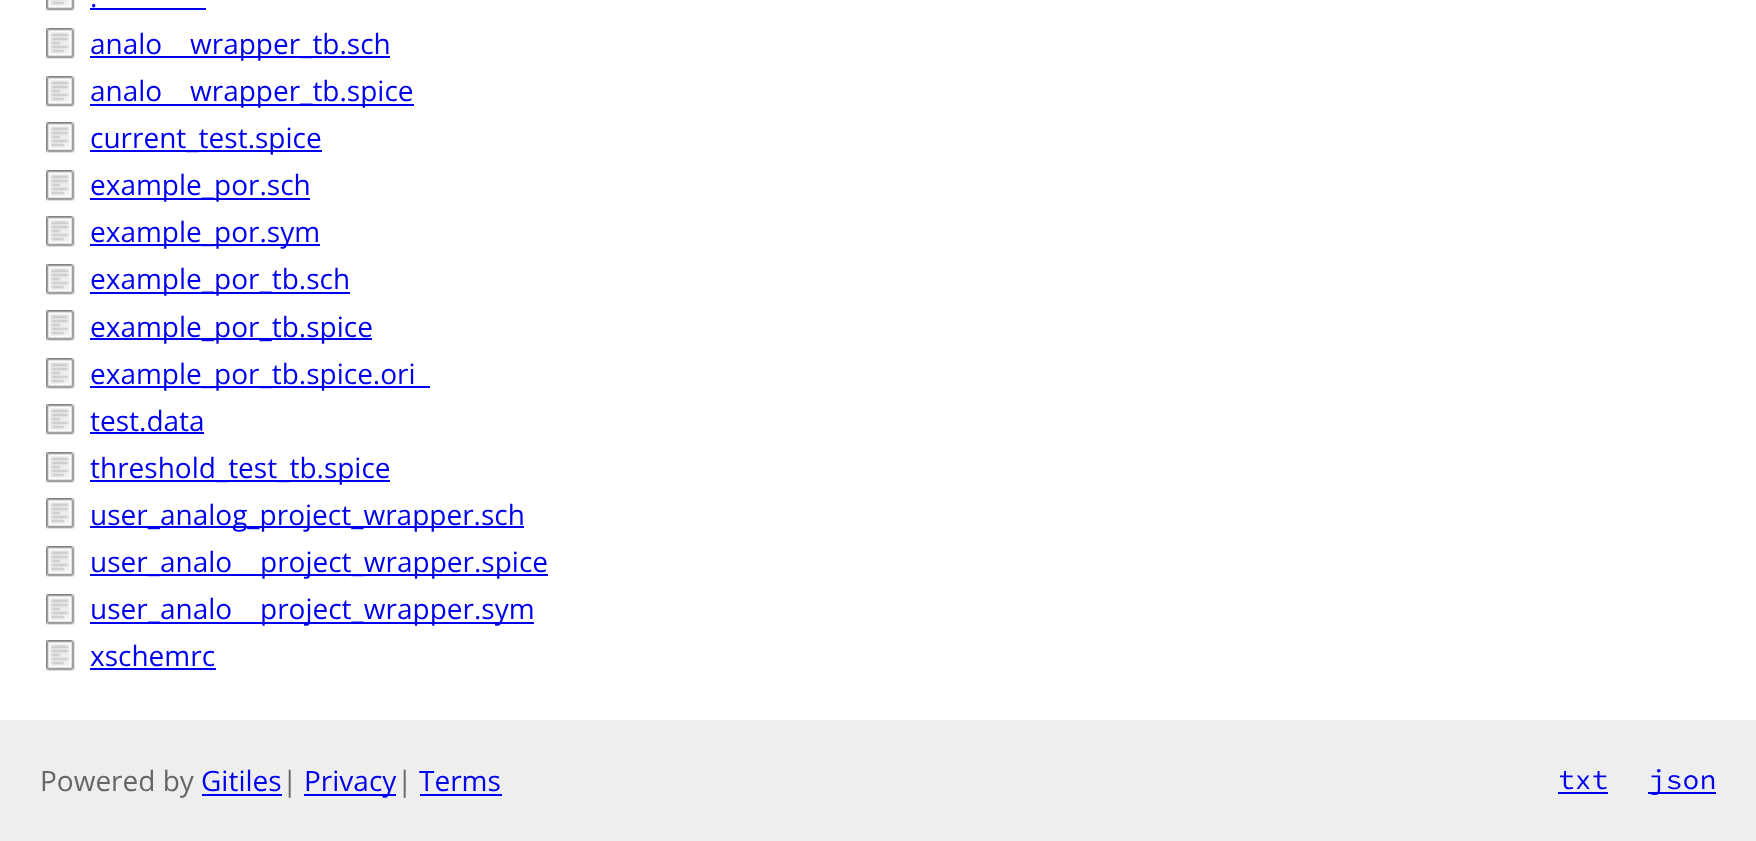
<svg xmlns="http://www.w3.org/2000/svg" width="1756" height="841">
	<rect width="100%" height="100%" fill="#FFFFFF" />
	<image x="46" y="0" width="29" height="11" href="assets/img1.png" />
	<text x="90" y="7" font-family="Open Sans" font-size="28" fill="#0000EE">.</text>
	<rect x="90" y="8" width="116" height="2" fill="#0000EE" />
	<image x="46" y="28" width="29" height="31" href="assets/img2.png" />
	<text x="90" y="54" font-family="Open Sans" font-size="28" fill="#0000EE">analo</text>
	<rect x="90" y="56" width="300" height="2" fill="#0000EE" />
	<text x="190" y="54" font-family="Open Sans" font-size="28" fill="#0000EE">wrapper_tb.sch</text>
	<image x="46" y="76" width="29" height="31" href="assets/img2.png" />
	<text x="90" y="101" font-family="Open Sans" font-size="28" fill="#0000EE">analo</text>
	<rect x="90" y="104" width="324" height="2" fill="#0000EE" />
	<text x="190" y="101" font-family="Open Sans" font-size="28" fill="#0000EE">wrapper_tb.spice</text>
	<image x="46" y="122" width="29" height="31" href="assets/img2.png" />
	<rect x="90" y="150" width="232" height="2" fill="#0000EE" />
	<text x="90" y="148" font-family="Open Sans" font-size="28" fill="#0000EE">current_test.spice</text>
	<image x="46" y="170" width="29" height="31" href="assets/img2.png" />
	<rect x="90" y="198" width="220" height="2" fill="#0000EE" />
	<text x="90" y="195" font-family="Open Sans" font-size="28" fill="#0000EE">example_por.sch</text>
	<image x="46" y="216" width="29" height="31" href="assets/img2.png" />
	<rect x="90" y="244" width="230" height="2" fill="#0000EE" />
	<text x="90" y="242" font-family="Open Sans" font-size="28" fill="#0000EE">example_por.sym</text>
	<image x="46" y="264" width="29" height="31" href="assets/img2.png" />
	<rect x="90" y="292" width="260" height="2" fill="#0000EE" />
	<text x="90" y="289" font-family="Open Sans" font-size="28" fill="#0000EE">example_por_tb.sch</text>
	<image x="46" y="310" width="29" height="31" href="assets/img2.png" />
	<rect x="90" y="338" width="282" height="2" fill="#0000EE" />
	<text x="90" y="337" font-family="Open Sans" font-size="28" fill="#0000EE">example_por_tb.spice</text>
	<image x="46" y="358" width="29" height="31" href="assets/img2.png" />
	<rect x="90" y="386" width="340" height="2" fill="#0000EE" />
	<text x="90" y="384" font-family="Open Sans" font-size="28" fill="#0000EE">example_por_tb.spice.ori</text>
	<image x="46" y="404" width="29" height="31" href="assets/img2.png" />
	<text x="90" y="431" font-family="Open Sans" font-size="28" fill="#0000EE">test.data</text>
	<rect x="90" y="432" width="114" height="2" fill="#0000EE" />
	<image x="46" y="452" width="29" height="31" href="assets/img2.png" />
	<rect x="90" y="480" width="300" height="2" fill="#0000EE" />
	<text x="90" y="478" font-family="Open Sans" font-size="28" fill="#0000EE">threshold_test_tb.spice</text>
	<image x="46" y="498" width="29" height="31" href="assets/img2.png" />
	<rect x="90" y="526" width="434" height="2" fill="#0000EE" />
	<text x="90" y="525" font-family="Open Sans" font-size="28" fill="#0000EE">user_analog_project_wrapper.sch</text>
	<image x="46" y="546" width="29" height="31" href="assets/img2.png" />
	<rect x="90" y="574" width="458" height="2" fill="#0000EE" />
	<g font-family="Open Sans" font-size="28" fill="#0000EE">
		<text x="90" y="572">user_analo</text>
		<text x="260" y="572">project_wrapper.spice</text>
	</g>
	<image x="46" y="594" width="29" height="31" href="assets/img2.png" />
	<rect x="90" y="622" width="444" height="2" fill="#0000EE" />
	<g font-family="Open Sans" font-size="28" fill="#0000EE">
		<text x="90" y="619">user_analo</text>
		<text x="260" y="619">project_wrapper.sym</text>
	</g>
	<image x="46" y="640" width="29" height="31" href="assets/img2.png" />
	<text x="90" y="666" font-family="Open Sans" font-size="28" fill="#0000EE">xschemrc</text>
	<rect x="90" y="668" width="126" height="2" fill="#0000EE" />
	<rect x="0" y="720" width="1756" height="121" fill="#EEEEEE" />
	<text x="40" y="791" font-family="Open Sans" font-size="28" fill="#666666">Powered by</text>
	<text x="201" y="791" font-family="Open Sans" font-size="28" fill="#0000EE">Gitiles</text>
	<rect x="202" y="794" width="80" height="2" fill="#0000EE" />
	<text x="282" y="791" font-family="Open Sans" font-size="28" fill="#666666">|</text>
	<rect x="304" y="794" width="92" height="2" fill="#0000EE" />
	<text x="304" y="791" font-family="Open Sans" font-size="28" fill="#0000EE">Privacy</text>
	<text x="397" y="791" font-family="Open Sans" font-size="28" fill="#666666">|</text>
	<text x="419" y="791" font-family="Open Sans" font-size="28" fill="#0000EE">Terms</text>
	<rect x="420" y="794" width="82" height="2" fill="#0000EE" />
	<text x="1558" y="789" font-family="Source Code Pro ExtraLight" font-size="28" font-weight="200" fill="#0000EE">txt</text>
	<rect x="1558" y="792" width="50" height="2" fill="#0000EE" />
	<rect x="1648" y="792" width="68" height="2" fill="#0000EE" />
	<text x="1649" y="789" font-family="Source Code Pro ExtraLight" font-size="28" font-weight="200" fill="#0000EE">json</text>
</svg>
